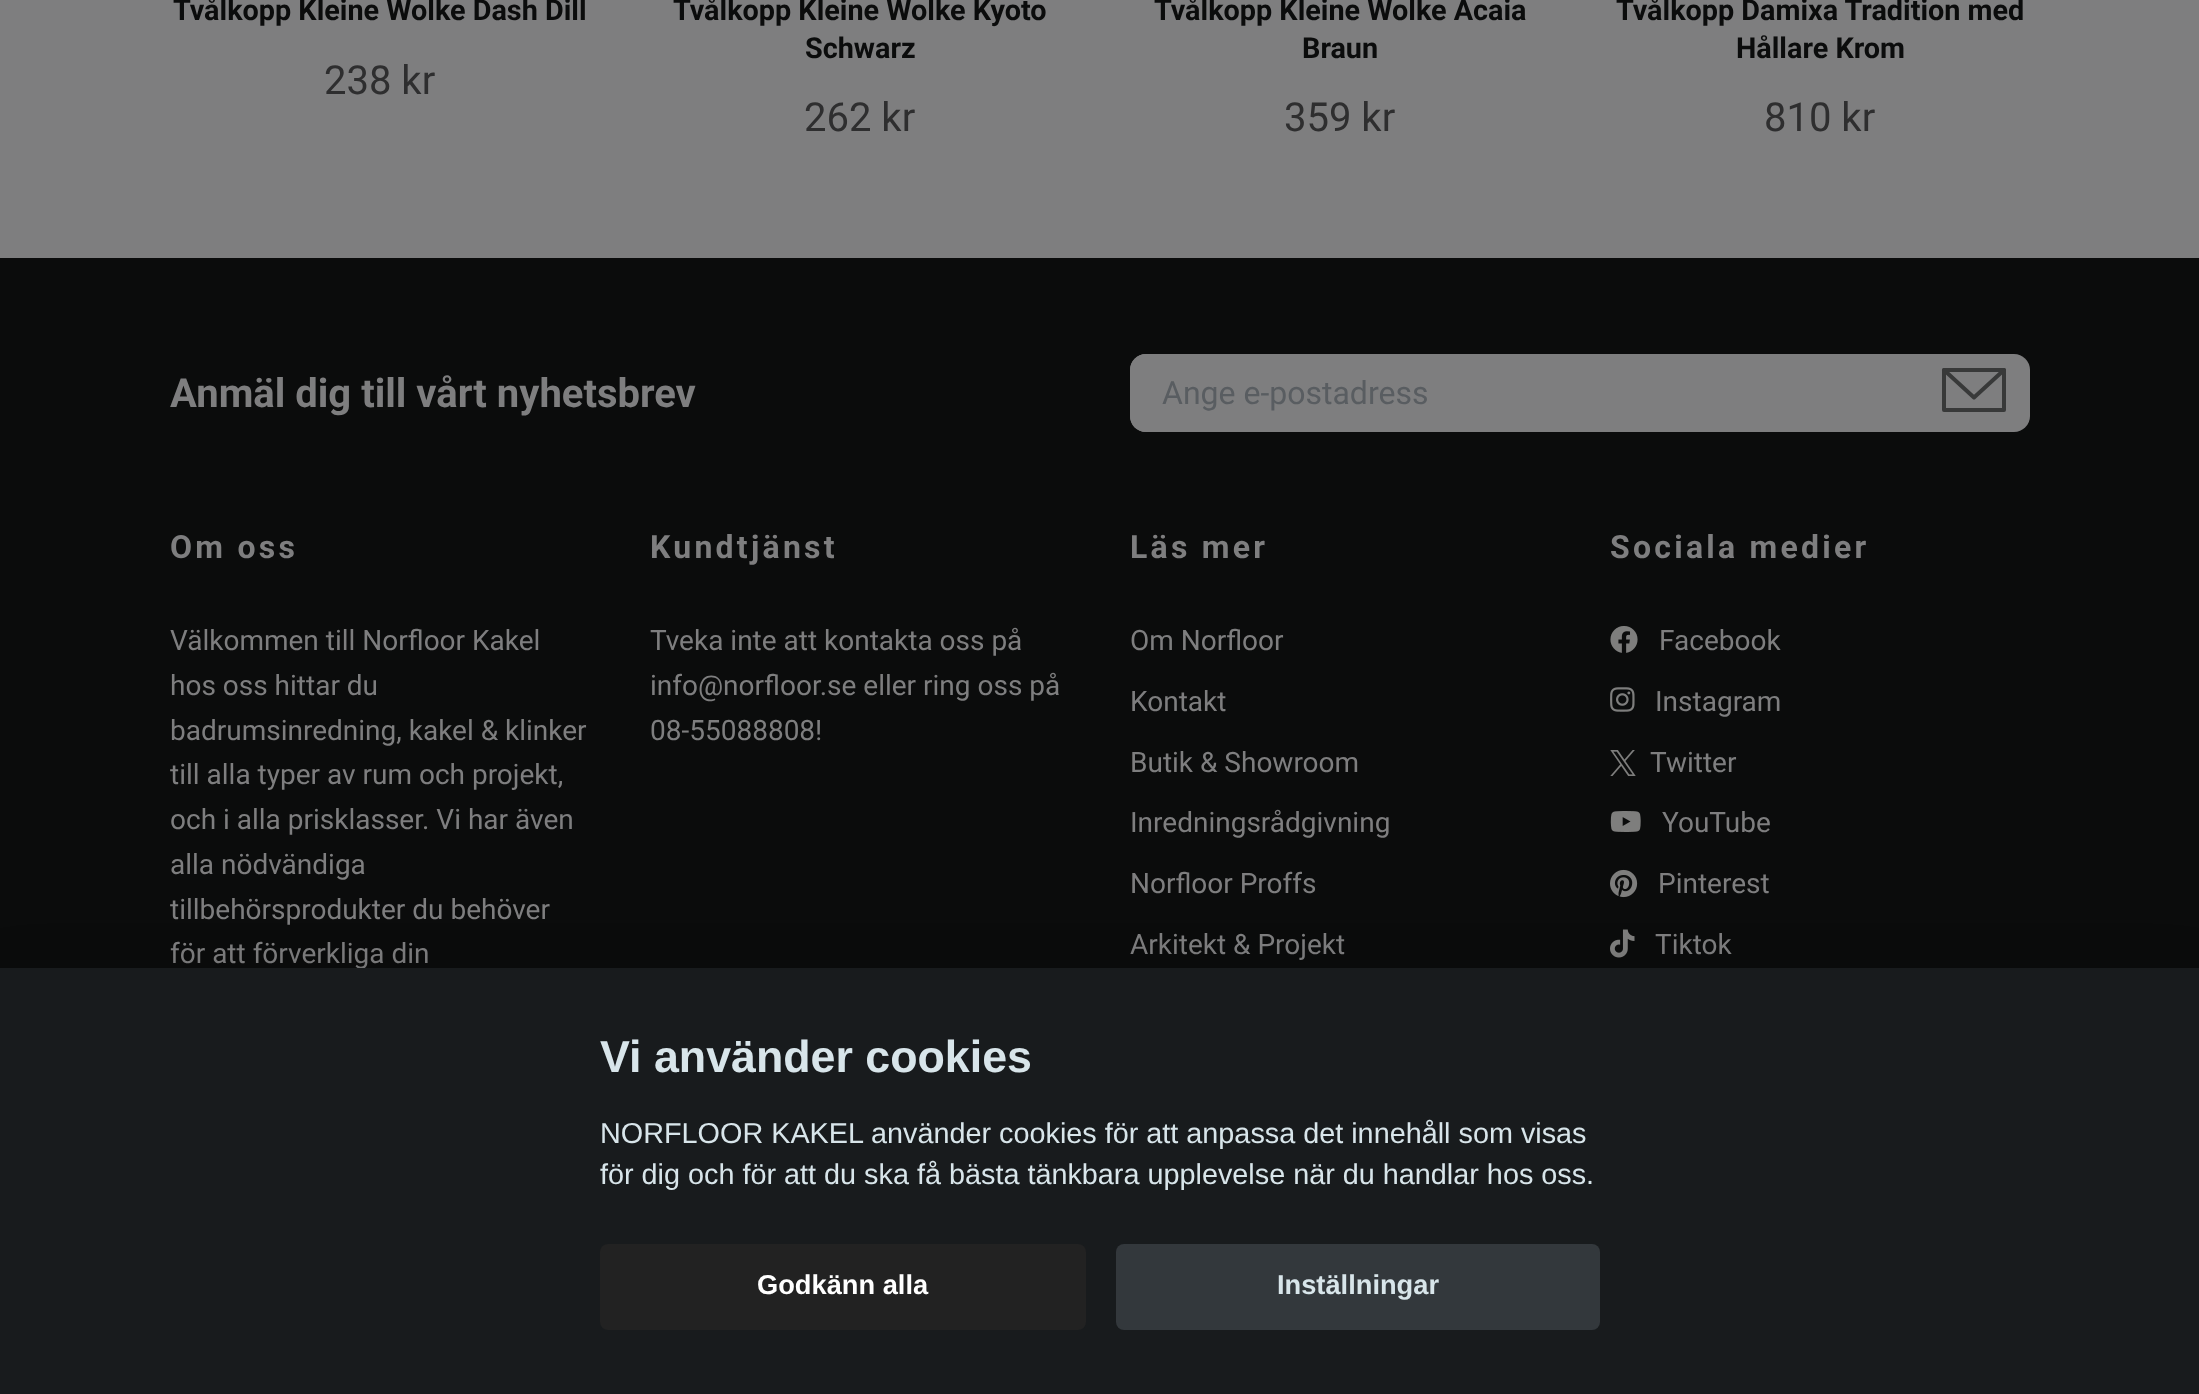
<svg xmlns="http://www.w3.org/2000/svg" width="2199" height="1394">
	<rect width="100%" height="100%" fill="#7E7E7F" />
	<text x="173" y="20" font-family="Roboto" font-size="28.8" font-weight="700" fill="#0B0C0C">Tvålkopp Kleine Wolke Dash Dill</text>
	<text x="324" y="94" font-family="Roboto" font-size="40" fill="#2E2E2F">238 kr</text>
	<g font-family="Roboto" font-size="28.8" font-weight="700" fill="#0B0C0C">
		<text x="673" y="20">Tvålkopp Kleine Wolke Kyoto</text>
		<text x="805" y="58">Schwarz</text>
	</g>
	<text x="804" y="131" font-family="Roboto" font-size="40" fill="#2E2E2F">262 kr</text>
	<g font-family="Roboto" font-size="28.8" font-weight="700" fill="#0B0C0C">
		<text x="1154" y="20">Tvålkopp Kleine Wolke Acaia</text>
		<text x="1302" y="58">Braun</text>
	</g>
	<text x="1284" y="131" font-family="Roboto" font-size="40" fill="#2E2E2F">359 kr</text>
	<g font-family="Roboto" font-size="28.8" font-weight="700" fill="#0B0C0C">
		<text x="1616" y="20">Tvålkopp Damixa Tradition med</text>
		<text x="1736" y="58">Hållare Krom</text>
	</g>
	<text x="1764" y="131" font-family="Roboto" font-size="40" fill="#2E2E2F">810 kr</text>
	<rect x="0" y="258" width="2199" height="710" fill="#0B0C0C" />
	<text x="170" y="407" font-family="Roboto" font-size="40" font-weight="700" fill="#7E7E7F">Anmäl dig till vårt nyhetsbrev</text>
	<rect x="1130" y="354" width="900" height="78" rx="16" fill="#7E7E7F" />
	<path d="M1146 354H1918V432H1146C1137 432 1130 425 1130 416V370C1130 361 1137 354 1146 354Z" fill="#7E7E7F" />
	<text x="1162" y="404" font-family="Roboto" font-size="32" fill="#595D61">Ange e-postadress</text>
	<path d="M1944 370L1974 397.5L2004 370" fill="none" stroke="#383939" stroke-width="4" stroke-linecap="round" stroke-linejoin="round" />
	<path d="M1944 370H2004V410H1944Z" fill="none" stroke="#383939" stroke-width="4" stroke-linecap="round" stroke-linejoin="round" />
	<text x="170" y="558" font-family="Roboto" font-size="32" font-weight="700" letter-spacing="3.25" fill="#7E7E7F">Om oss</text>
	<g font-family="Roboto" font-size="28" fill="#7E7E7F">
		<text x="170" y="650">Välkommen till Norfloor Kakel</text>
		<text x="170" y="695">hos oss hittar du</text>
		<text x="170" y="740">badrumsinredning, kakel &amp; klinker</text>
		<text x="170" y="784">till alla typer av rum och projekt,</text>
		<text x="170" y="829">och i alla prisklasser. Vi har även</text>
		<text x="170" y="874">alla nödvändiga</text>
		<text x="170" y="919">tillbehörsprodukter du behöver</text>
		<text x="170" y="963">för att förverkliga din</text>
	</g>
	<text x="650" y="558" font-family="Roboto" font-size="32" font-weight="700" letter-spacing="3.25" fill="#7E7E7F">Kundtjänst</text>
	<g font-family="Roboto" font-size="28" fill="#7E7E7F">
		<text x="650" y="650">Tveka inte att kontakta oss på</text>
		<text x="650" y="695">info@norfloor.se eller ring oss på</text>
		<text x="650" y="740">08-55088808!</text>
	</g>
	<text x="1130" y="558" font-family="Roboto" font-size="32" font-weight="700" letter-spacing="3.25" fill="#7E7E7F">Läs mer</text>
	<g font-family="Roboto" font-size="28" fill="#7E7E7F">
		<text x="1130" y="650">Om Norfloor</text>
		<text x="1130" y="711">Kontakt</text>
		<text x="1130" y="772">Butik &amp; Showroom</text>
		<text x="1130" y="832">Inredningsrådgivning</text>
		<text x="1130" y="893">Norfloor Proffs</text>
		<text x="1130" y="954">Arkitekt &amp; Projekt</text>
	</g>
	<text x="1610" y="558" font-family="Roboto" font-size="32" font-weight="700" letter-spacing="3.25" fill="#7E7E7F">Sociala medier</text>
	<image x="1610" y="626" width="28" height="27" href="assets/img1.png" />
	<text x="1659" y="650" font-family="Roboto" font-size="28" fill="#7E7E7F">Facebook</text>
	<image x="1610" y="687" width="25" height="25" href="assets/img2.png" />
	<text x="1655" y="711" font-family="Roboto" font-size="28" fill="#7E7E7F">Instagram</text>
	<image x="1610" y="750" width="26" height="26" href="assets/img3.png" />
	<text x="1650" y="772" font-family="Roboto" font-size="28" fill="#7E7E7F">Twitter</text>
	<image x="1610" y="811" width="31" height="21" href="assets/img4.png" />
	<text x="1662" y="832" font-family="Roboto" font-size="28" fill="#7E7E7F">YouTube</text>
	<image x="1610" y="869" width="28" height="29" href="assets/img5.png" />
	<text x="1658" y="893" font-family="Roboto" font-size="28" fill="#7E7E7F">Pinterest</text>
	<image x="1610" y="929" width="25" height="29" href="assets/img6.png" />
	<text x="1655" y="954" font-family="Roboto" font-size="28" fill="#7E7E7F">Tiktok</text>
	<rect x="0" y="988" width="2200" height="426" fill="#020203" fill-opacity="0.28" filter="blur(30px)" />
	<rect x="0" y="968" width="2199" height="426" fill="#181B1D" />
	<text x="600" y="1072" font-family="Liberation Sans" font-size="44.75" font-weight="700" fill="#D8E5EA">Vi använder cookies</text>
	<g font-family="Liberation Sans" font-size="28.8" fill="#D8E5EA">
		<text x="600" y="1143">NORFLOOR KAKEL använder cookies för att anpassa det innehåll som visas</text>
		<text x="600" y="1184">för dig och för att du ska få bästa tänkbara upplevelse när du handlar hos oss.</text>
	</g>
	<rect x="600" y="1244" width="486" height="86" rx="8" fill="#222222" />
	<text x="757" y="1294" font-family="Liberation Sans" font-size="27.25" font-weight="700" fill="#FFFFFF">Godkänn alla</text>
	<rect x="1116" y="1244" width="484" height="86" rx="8" fill="#33383C" />
	<text x="1277" y="1294" font-family="Liberation Sans" font-size="27.25" font-weight="700" fill="#D8E5EA">Inställningar</text>
</svg>
